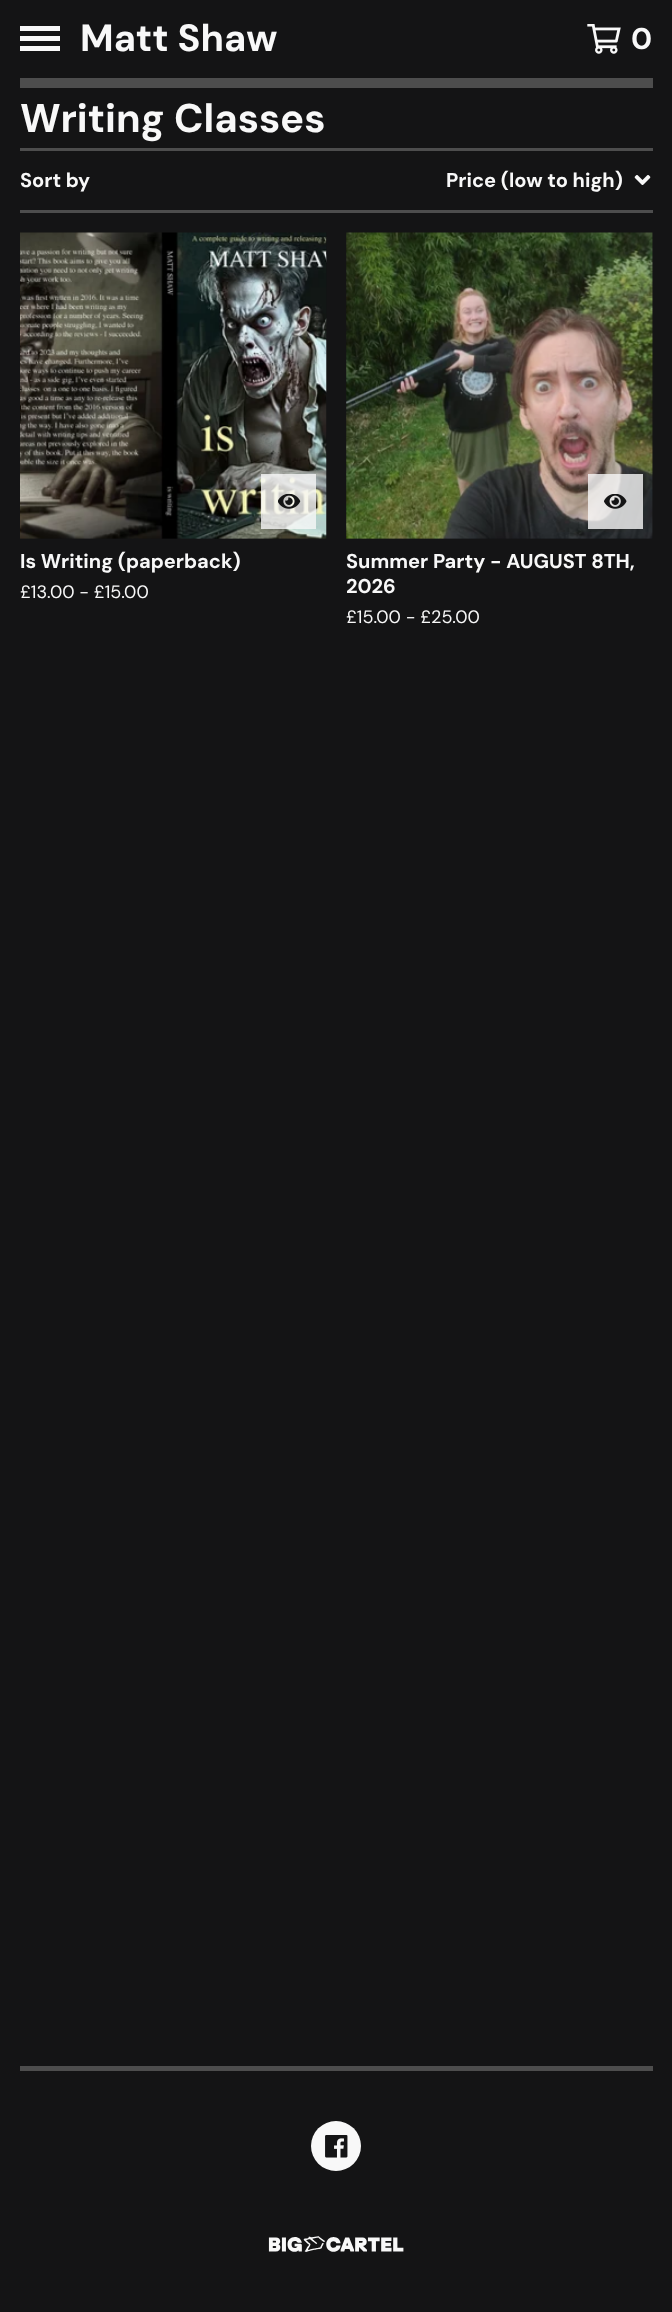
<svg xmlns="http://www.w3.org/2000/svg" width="672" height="2312">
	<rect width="100%" height="100%" fill="#141415" />
	<rect x="20" y="78" width="633" height="10" fill="#4D4D4D" />
	<rect x="20" y="36" width="40" height="5" fill="#F8F8F8" />
	<rect x="20" y="26" width="40" height="5" fill="#F8F8F8" />
	<rect x="20" y="46" width="40" height="5" fill="#F8F8F8" />
	<text x="80" y="51" font-family="DM Sans" font-size="38" font-weight="700" fill="#F8F8F8">Matt Shaw</text>
	<image x="587" y="24" width="34" height="30" href="assets/img1.png" />
	<text x="631" y="49" font-family="DM Sans" font-size="30" font-weight="700" fill="#F8F8F8">0</text>
	<rect x="20" y="210" width="633" height="3" fill="#4D4D4D" />
	<rect x="20" y="148" width="633" height="3" fill="#4D4D4D" />
	<text x="20" y="132" font-family="DM Sans" font-size="40" font-weight="700" fill="#F8F8F8">Writing Classes</text>
	<g font-family="DM Sans" font-size="20" font-weight="700" fill="#F8F8F8">
		<text x="20" y="187">Sort by</text>
		<text x="446" y="187">Price (low to high)</text>
	</g>
	<image x="634" y="175" width="17" height="10" href="assets/img2.png" />
	<image x="20" y="232" width="307" height="307" href="assets/img3.png" />
	<rect x="261" y="474" width="55" height="55" fill="#F8F8F8" fill-opacity="0.8" />
	<image x="278" y="494" width="23" height="15" href="assets/img4.png" />
	<text x="20" y="568" font-family="DM Sans" font-size="20" font-weight="700" fill="#F8F8F8">Is Writing (paperback)</text>
	<text x="20" y="598" font-family="DM Sans" font-size="18" fill="#F8F8F8">£13.00 - £15.00</text>
	<image x="346" y="232" width="307" height="307" href="assets/img5.png" />
	<rect x="588" y="474" width="55" height="55" fill="#F8F8F8" fill-opacity="0.8" />
	<image x="604" y="494" width="23" height="15" href="assets/img6.png" />
	<g font-family="DM Sans" font-size="20" font-weight="700" fill="#F8F8F8">
		<text x="346" y="568">Summer Party - AUGUST 8TH,</text>
		<text x="346" y="593">2026</text>
	</g>
	<text x="346" y="623" font-family="DM Sans" font-size="18" fill="#F8F8F8">£15.00 - £25.00</text>
	<rect x="20" y="2066" width="633" height="5" fill="#4D4D4D" />
	<circle cx="336" cy="2146" r="25" fill="#F8F8F8" />
	<image x="325" y="2135" width="23" height="23" href="assets/img7.png" />
	<image x="268" y="2236" width="136" height="16" href="assets/img8.png" />
</svg>
